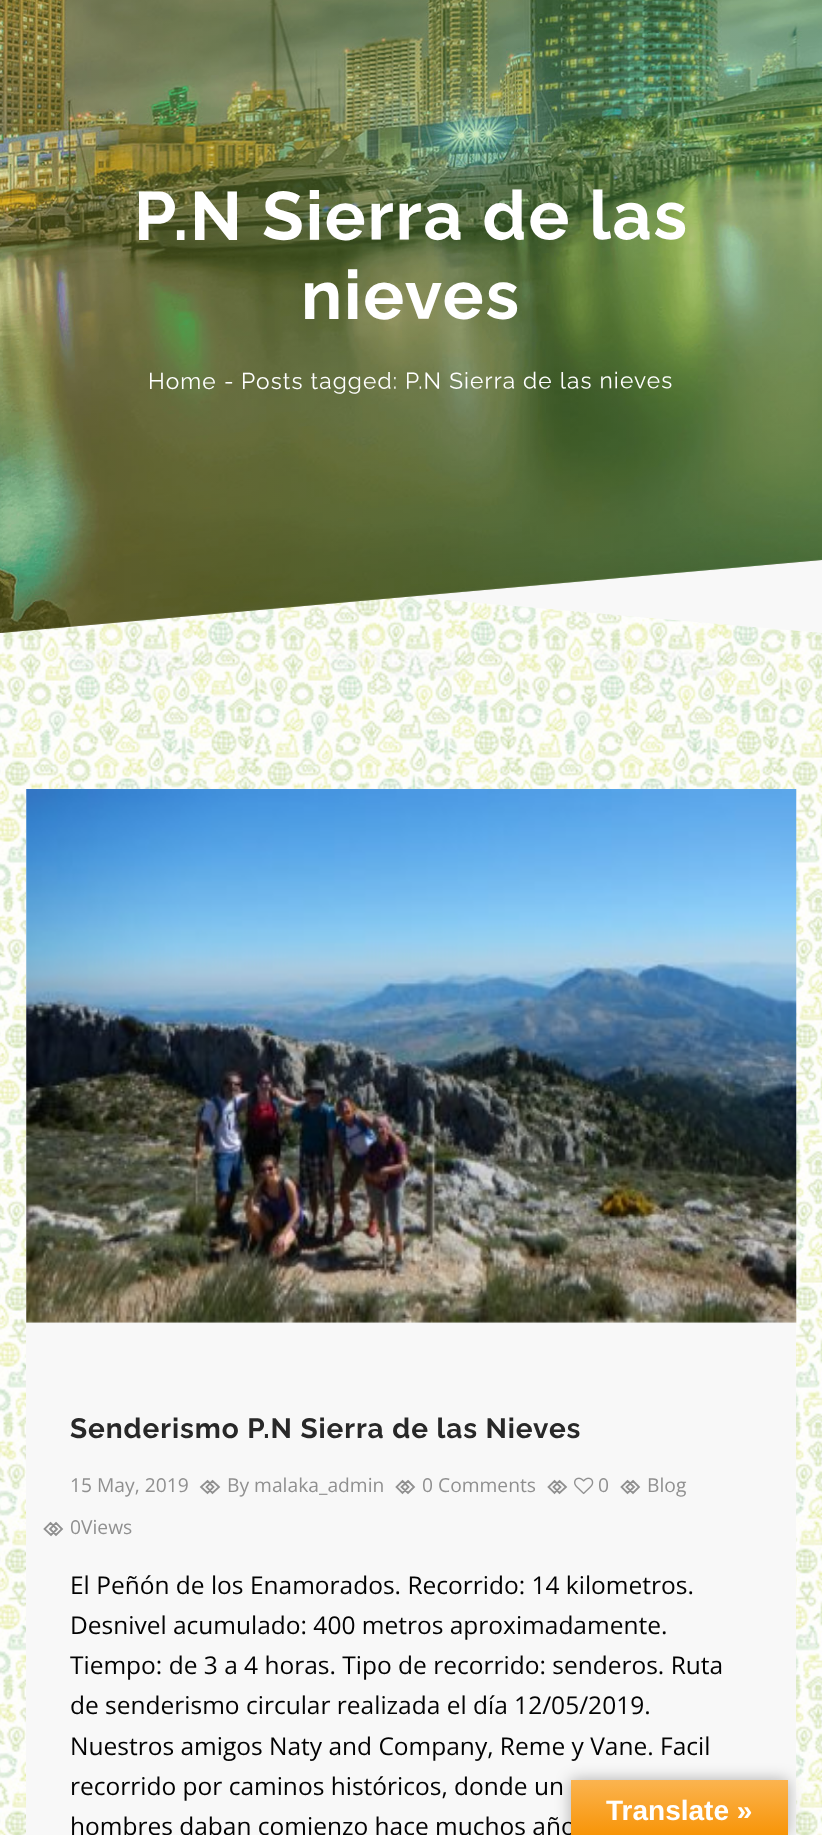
<svg xmlns="http://www.w3.org/2000/svg" width="822" height="1835">
	<defs>
		<linearGradient id="g1" gradientUnits="userSpaceOnUse" x1="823" y1="35" x2="0" y2="108"><stop offset="0" stop-color="#57DB65" stop-opacity="0.36" /><stop offset="1" stop-color="#ACB029" stop-opacity="0.34" /></linearGradient>
		<linearGradient id="g2" gradientUnits="userSpaceOnUse" x1="679" y1="1780" x2="679" y2="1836"><stop offset="0" stop-color="#FBB450" /><stop offset="1" stop-color="#F89406" /></linearGradient>
	</defs>
	<rect width="100%" height="100%" fill="#FFFFFF" />
	<image x="0" y="596" width="822" height="1239" href="assets/img1.png" />
	<path d="M0-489L822-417V633L0 561Z" fill="#F8F8F8" />
	<image x="0" y="0" width="822" height="633" href="assets/img2.png" />
	<path d="M0-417V633L822 560V-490Z" fill="url(#g1)" />
	<g font-family="Raleway" font-size="68.25" font-weight="700" letter-spacing="1.75" fill="#FFFFFF">
		<text x="134" y="240" transform="rotate(-0.1 134 240)">P.N Sierra de las</text>
		<text x="301" y="319" transform="rotate(-0.1 301 319)">nieves</text>
	</g>
	<g font-family="Raleway" font-size="22.75" letter-spacing="1.1" fill="#FFFFFF">
		<text x="148" y="389" transform="rotate(-0.1 148 389)">Home</text>
		<text x="224" y="389" transform="rotate(-0.1 224 389)">-</text>
		<text x="241" y="389" transform="rotate(-0.1 241 389)">Posts tagged: P.N Sierra de las nieves</text>
	</g>
	<rect x="26" y="789" width="770" height="1046" fill="#F8F8F8" />
	<image x="26" y="789" width="771" height="534" href="assets/img3.png" />
	<text x="70" y="1438" font-family="Raleway" font-size="28" font-weight="700" letter-spacing="0.9" fill="#282828">Senderismo P.N Sierra de las Nieves</text>
	<text x="70" y="1492" font-family="Open Sans" font-size="19.25" fill="#909090">15 May, 2019</text>
	<path d="M207.5 1481L213.5 1487L207.5 1493L201 1487ZM212.5 1481L219 1487L212.5 1493L206.5 1487Z" fill="none" stroke="#909090" stroke-width="1.8" />
	<text x="227" y="1492" font-family="Open Sans" font-size="19.25" fill="#909090">By malaka_admin</text>
	<path d="M402.5 1481L408.5 1487L402.5 1493L396.5 1487ZM408 1481L414 1487L408 1493L401.5 1487Z" fill="none" stroke="#909090" stroke-width="1.8" />
	<text x="422" y="1492" font-family="Open Sans" font-size="19.25" fill="#909090">0 Comments</text>
	<path d="M554.5 1481L560.5 1487L554.5 1493L548.5 1487ZM559.5 1481L566 1487L559.5 1493L553.5 1487Z" fill="none" stroke="#909090" stroke-width="1.8" />
	<image x="574" y="1477" width="20" height="18" href="assets/img4.png" />
	<text x="598" y="1492" font-family="Open Sans" font-size="19.25" fill="#909090">0</text>
	<path d="M627.5 1481L634 1487L627.5 1493L621.5 1487ZM633 1481L639 1487L633 1493L626.5 1487Z" fill="none" stroke="#909090" stroke-width="1.8" />
	<text x="647" y="1492" font-family="Open Sans" font-size="19.25" fill="#909090">Blog</text>
	<path d="M50.5 1523L57 1529L51 1535L44.5 1529ZM56 1523L62 1529L56 1535L50 1529Z" fill="none" stroke="#909090" stroke-width="1.8" />
	<text x="70" y="1534" font-family="Open Sans" font-size="19.25" fill="#909090">0Views</text>
	<g font-family="Open Sans" font-size="24.5" fill="#020202">
		<text x="70" y="1594">El Peñón de los Enamorados. Recorrido: 14 kilometros.</text>
		<text x="70" y="1634">Desnivel acumulado: 400 metros aproximadamente.</text>
		<text x="70" y="1674">Tiempo: de 3 a 4 horas. Tipo de recorrido: senderos. Ruta</text>
		<text x="70" y="1714">de senderismo circular realizada el día 12/05/2019.</text>
		<text x="70" y="1755">Nuestros amigos Naty and Company, Reme y Vane. Facil</text>
		<text x="70" y="1795">recorrido por caminos históricos, donde un</text>
		<text x="70" y="1835">hombres daban comienzo hace muchos año</text>
	</g>
	<rect x="571" y="1780" width="217" height="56" fill="#000000" fill-opacity="0.3" filter="blur(8px)" />
	<rect x="571" y="1780" width="217" height="55" fill="url(#g2)" />
	<text x="606" y="1820" font-family="Liberation Sans" font-size="28" font-weight="700" fill="#FFFFFF">Translate »</text>
</svg>
